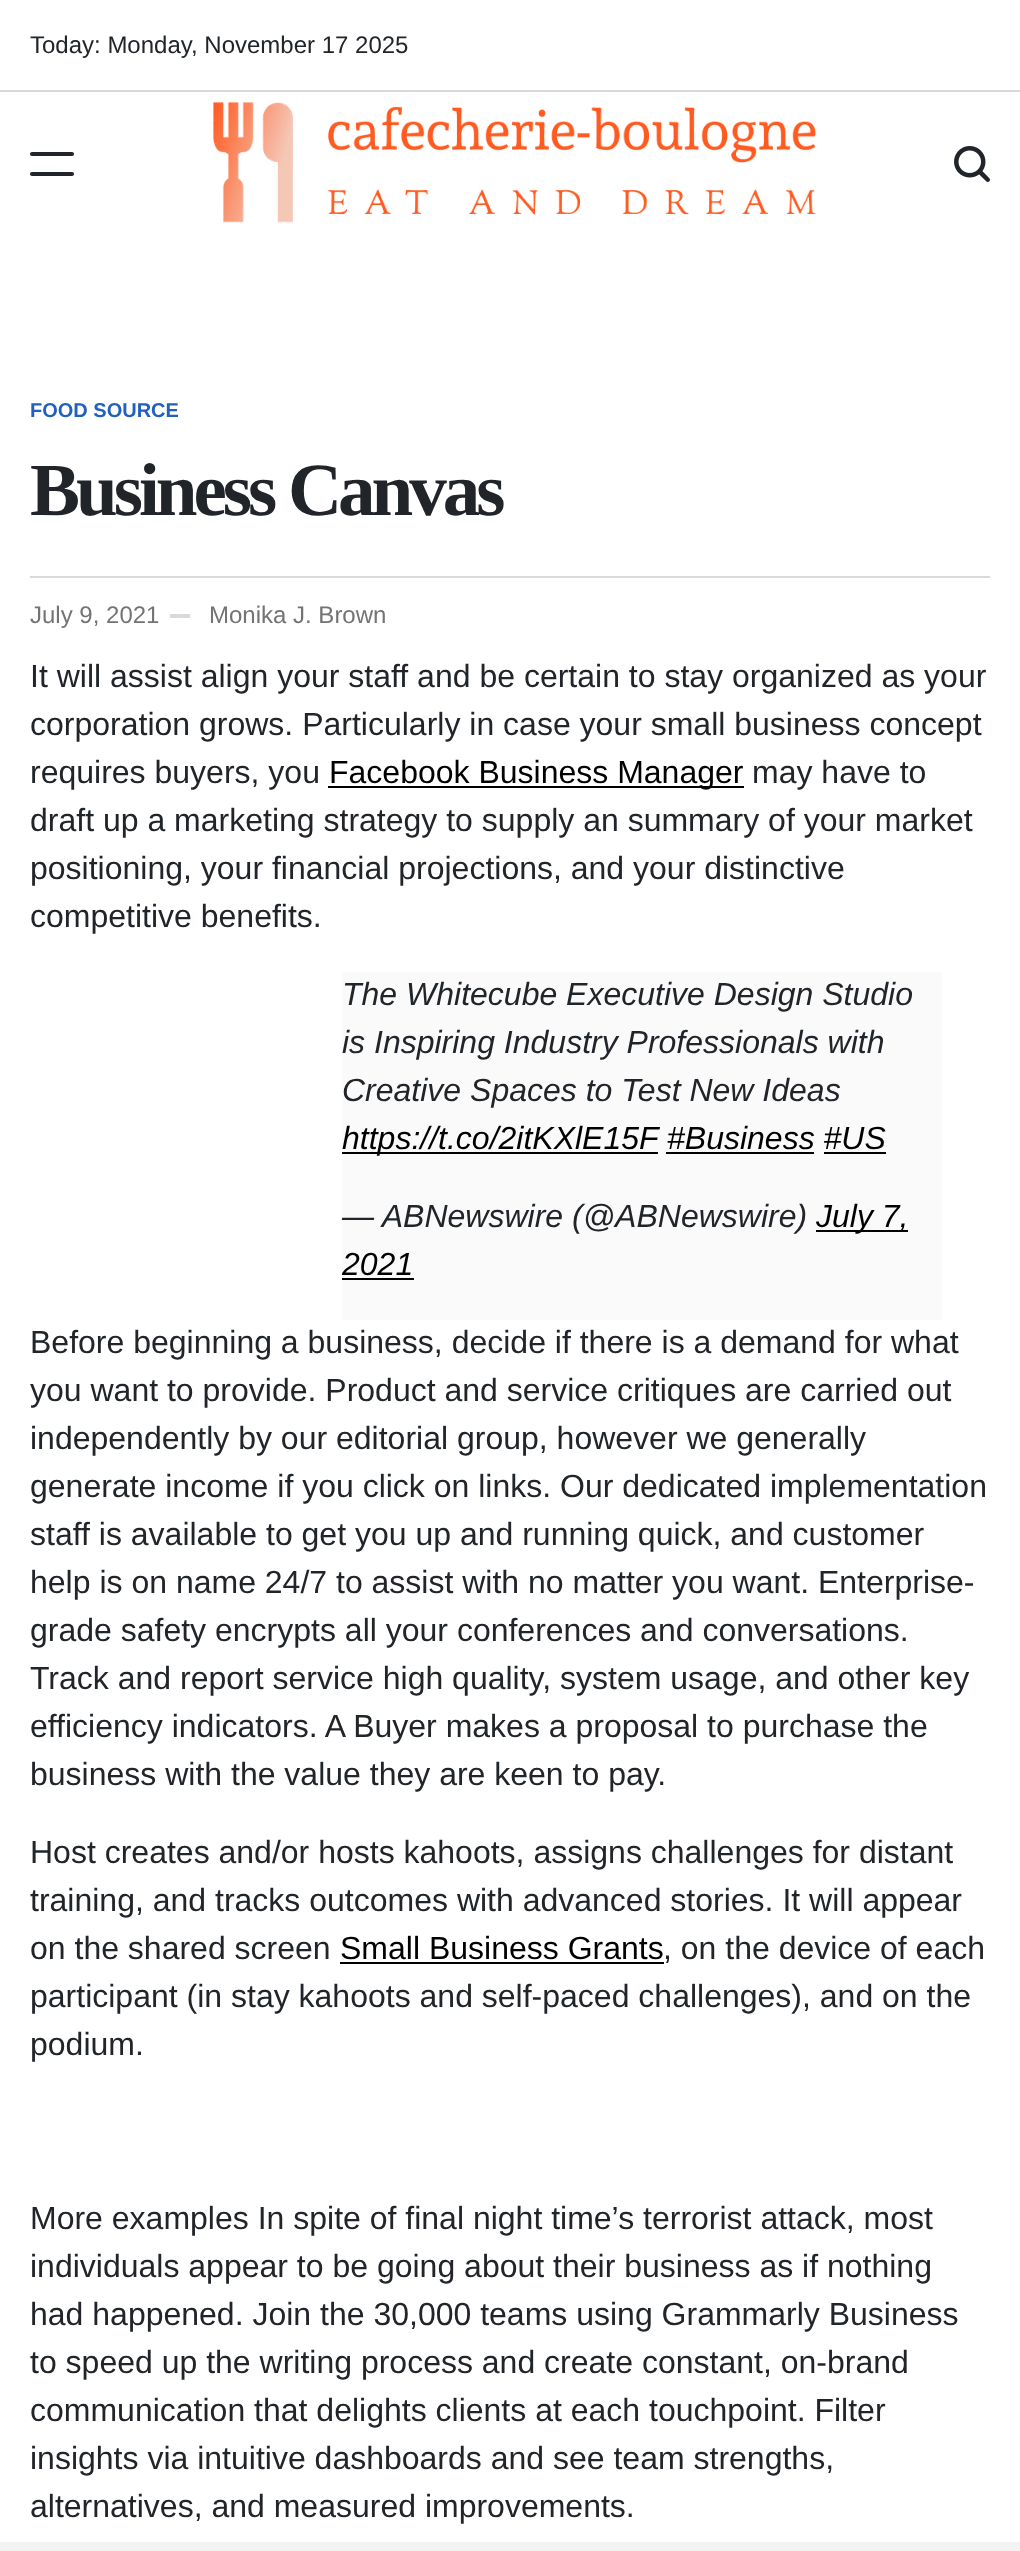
<svg xmlns="http://www.w3.org/2000/svg" width="1020" height="2551">
	<rect width="100%" height="100%" fill="#FFFFFF" />
	<rect x="0" y="90" width="1020" height="2" fill="#D9D9D9" />
	<text x="30" y="53" font-family="Liberation Sans" font-size="24" fill="#212529">Today: Monday, November 17 2025</text>
	<rect x="30" y="152" width="44" height="4" rx="2" fill="#212529" />
	<rect x="30" y="172" width="44" height="4" rx="2" fill="#212529" />
	<image x="212" y="102" width="604" height="121" href="assets/img1.png" />
	<image x="954" y="146" width="36" height="36" href="assets/img2.png" />
	<text x="30" y="417" font-family="Liberation Sans" font-size="20" font-weight="700" fill="#2260BF">FOOD SOURCE</text>
	<text x="30" y="515" font-family="Liberation Serif" font-size="75" font-weight="700" letter-spacing="-4" fill="#212529">Business Canvas</text>
	<rect x="30" y="576" width="960" height="2" fill="#D9D9D9" />
	<text x="30" y="623" font-family="Liberation Sans" font-size="24" fill="#737373">July 9, 2021</text>
	<rect x="170" y="614" width="20" height="4" fill="#D9D9D9" />
	<text x="209" y="623" font-family="Liberation Sans" font-size="24" fill="#737373">Monika J. Brown</text>
	<g font-family="Liberation Sans" font-size="32" fill="#212529">
		<text x="30" y="687">It will assist align your staff and be certain to stay organized as your</text>
		<text x="30" y="735">corporation grows. Particularly in case your small business concept</text>
		<text x="30" y="783">requires buyers, you</text>
	</g>
	<rect x="328" y="786" width="416" height="2" fill="#000000" />
	<text x="329" y="783" font-family="Liberation Sans" font-size="32" fill="#000000">Facebook Business Manager</text>
	<g font-family="Liberation Sans" font-size="32" fill="#212529">
		<text x="752" y="783">may have to</text>
		<text x="30" y="831">draft up a marketing strategy to supply an summary of your market</text>
		<text x="30" y="879">positioning, your financial projections, and your distinctive</text>
		<text x="30" y="927">competitive benefits.</text>
	</g>
	<rect x="342" y="972" width="600" height="348" fill="#FAFAFA" />
	<g font-family="Liberation Sans" font-size="32" font-style="italic" fill="#212529">
		<text x="342" y="1005">The Whitecube Executive Design Studio</text>
		<text x="342" y="1053">is Inspiring Industry Professionals with</text>
		<text x="342" y="1101">Creative Spaces to Test New Ideas</text>
	</g>
	<rect x="342" y="1152" width="316" height="2" fill="#000000" />
	<g font-family="Liberation Sans" font-size="32" font-style="italic" fill="#000000">
		<text x="342" y="1149">https://t.co/2itKXlE15F</text>
		<text x="667" y="1149">#Business #US</text>
	</g>
	<rect x="666" y="1152" width="148" height="2" fill="#000000" />
	<rect x="824" y="1152" width="62" height="2" fill="#000000" />
	<text x="342" y="1227" font-family="Liberation Sans" font-size="32" font-style="italic" fill="#212529">— ABNewswire (@ABNewswire)</text>
	<rect x="816" y="1230" width="92" height="2" fill="#000000" />
	<g font-family="Liberation Sans" font-size="32" font-style="italic" fill="#000000">
		<text x="816" y="1227">July 7,</text>
		<text x="342" y="1275">2021</text>
	</g>
	<rect x="342" y="1278" width="72" height="2" fill="#000000" />
	<g font-family="Liberation Sans" font-size="32" fill="#212529">
		<text x="30" y="1353">Before beginning a business, decide if there is a demand for what</text>
		<text x="30" y="1401">you want to provide. Product and service critiques are carried out</text>
		<text x="30" y="1449">independently by our editorial group, however we generally</text>
		<text x="30" y="1497">generate income if you click on links. Our dedicated implementation</text>
		<text x="30" y="1545">staff is available to get you up and running quick, and customer</text>
		<text x="30" y="1593">help is on name 24/7 to assist with no matter you want. Enterprise-</text>
		<text x="30" y="1641">grade safety encrypts all your conferences and conversations.</text>
		<text x="30" y="1689">Track and report service high quality, system usage, and other key</text>
		<text x="30" y="1737">efficiency indicators. A Buyer makes a proposal to purchase the</text>
		<text x="30" y="1785">business with the value they are keen to pay.</text>
		<text x="30" y="1863">Host creates and/or hosts kahoots, assigns challenges for distant</text>
		<text x="30" y="1911">training, and tracks outcomes with advanced stories. It will appear</text>
		<text x="30" y="1959">on the shared screen</text>
	</g>
	<text x="340" y="1959" font-family="Liberation Sans" font-size="32" fill="#000000">Small Business Grants</text>
	<rect x="340" y="1962" width="324" height="2" fill="#000000" />
	<g font-family="Liberation Sans" font-size="32" fill="#212529">
		<text x="663" y="1959">, on the device of each</text>
		<text x="30" y="2007">participant (in stay kahoots and self-paced challenges), and on the</text>
		<text x="30" y="2055">podium.</text>
		<text x="30" y="2229">More examples In spite of final night time’s terrorist attack, most</text>
		<text x="30" y="2277">individuals appear to be going about their business as if nothing</text>
		<text x="30" y="2325">had happened. Join the 30,000 teams using Grammarly Business</text>
		<text x="30" y="2373">to speed up the writing process and create constant, on-brand</text>
		<text x="30" y="2421">communication that delights clients at each touchpoint. Filter</text>
		<text x="30" y="2469">insights via intuitive dashboards and see team strengths,</text>
		<text x="30" y="2517">alternatives, and measured improvements.</text>
	</g>
	<rect x="0" y="2542" width="1020" height="9" fill="#F3F3F3" />
</svg>
